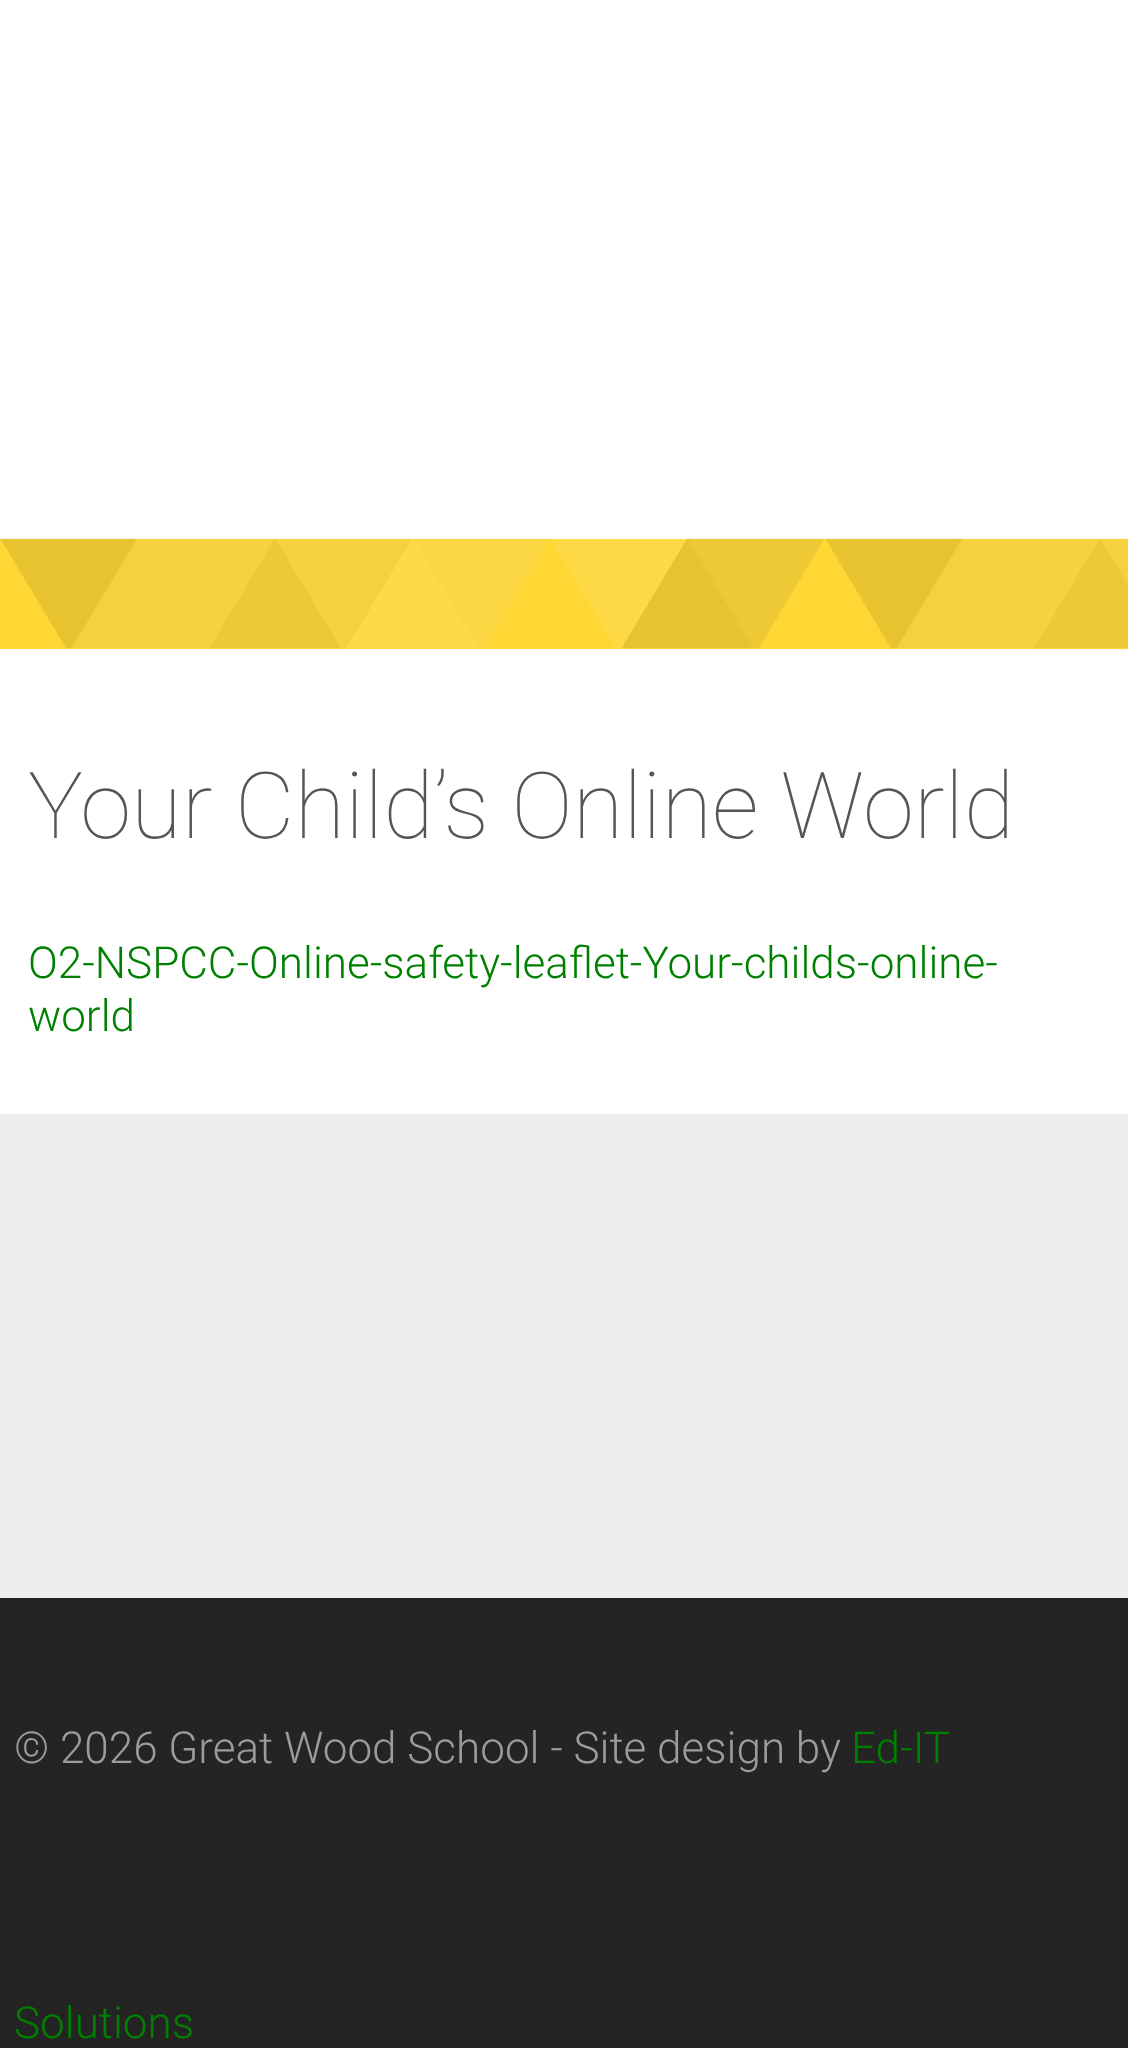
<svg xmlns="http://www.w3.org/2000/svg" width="1128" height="2048">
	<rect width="100%" height="100%" fill="#FFFFFF" />
	<rect x="0" y="539" width="1128" height="110" fill="#FFD735" />
	<image x="0" y="538" width="1128" height="111" href="assets/img1.png" />
	<rect x="0" y="1114" width="1128" height="484" fill="#EEEEEE" />
	<text x="28" y="838" font-family="Roboto" font-size="92.4" font-weight="100" fill="#555555">Your Child’s Online World</text>
	<g font-family="Roboto" font-size="44" font-weight="300" fill="#008000">
		<text x="28" y="978">O2-NSPCC-Online-safety-leaflet-Your-childs-online-</text>
		<text x="28" y="1031">world</text>
	</g>
	<rect x="0" y="1598" width="1128" height="450" fill="#242424" />
	<text x="14" y="1763" font-family="Roboto" font-size="44" font-weight="300" fill="#9C9C9C">© 2026 Great Wood School - Site design by</text>
	<g font-family="Roboto" font-size="44" font-weight="300" fill="#008000">
		<text x="851" y="1763">Ed-IT</text>
		<text x="14" y="2038">Solutions</text>
	</g>
</svg>
